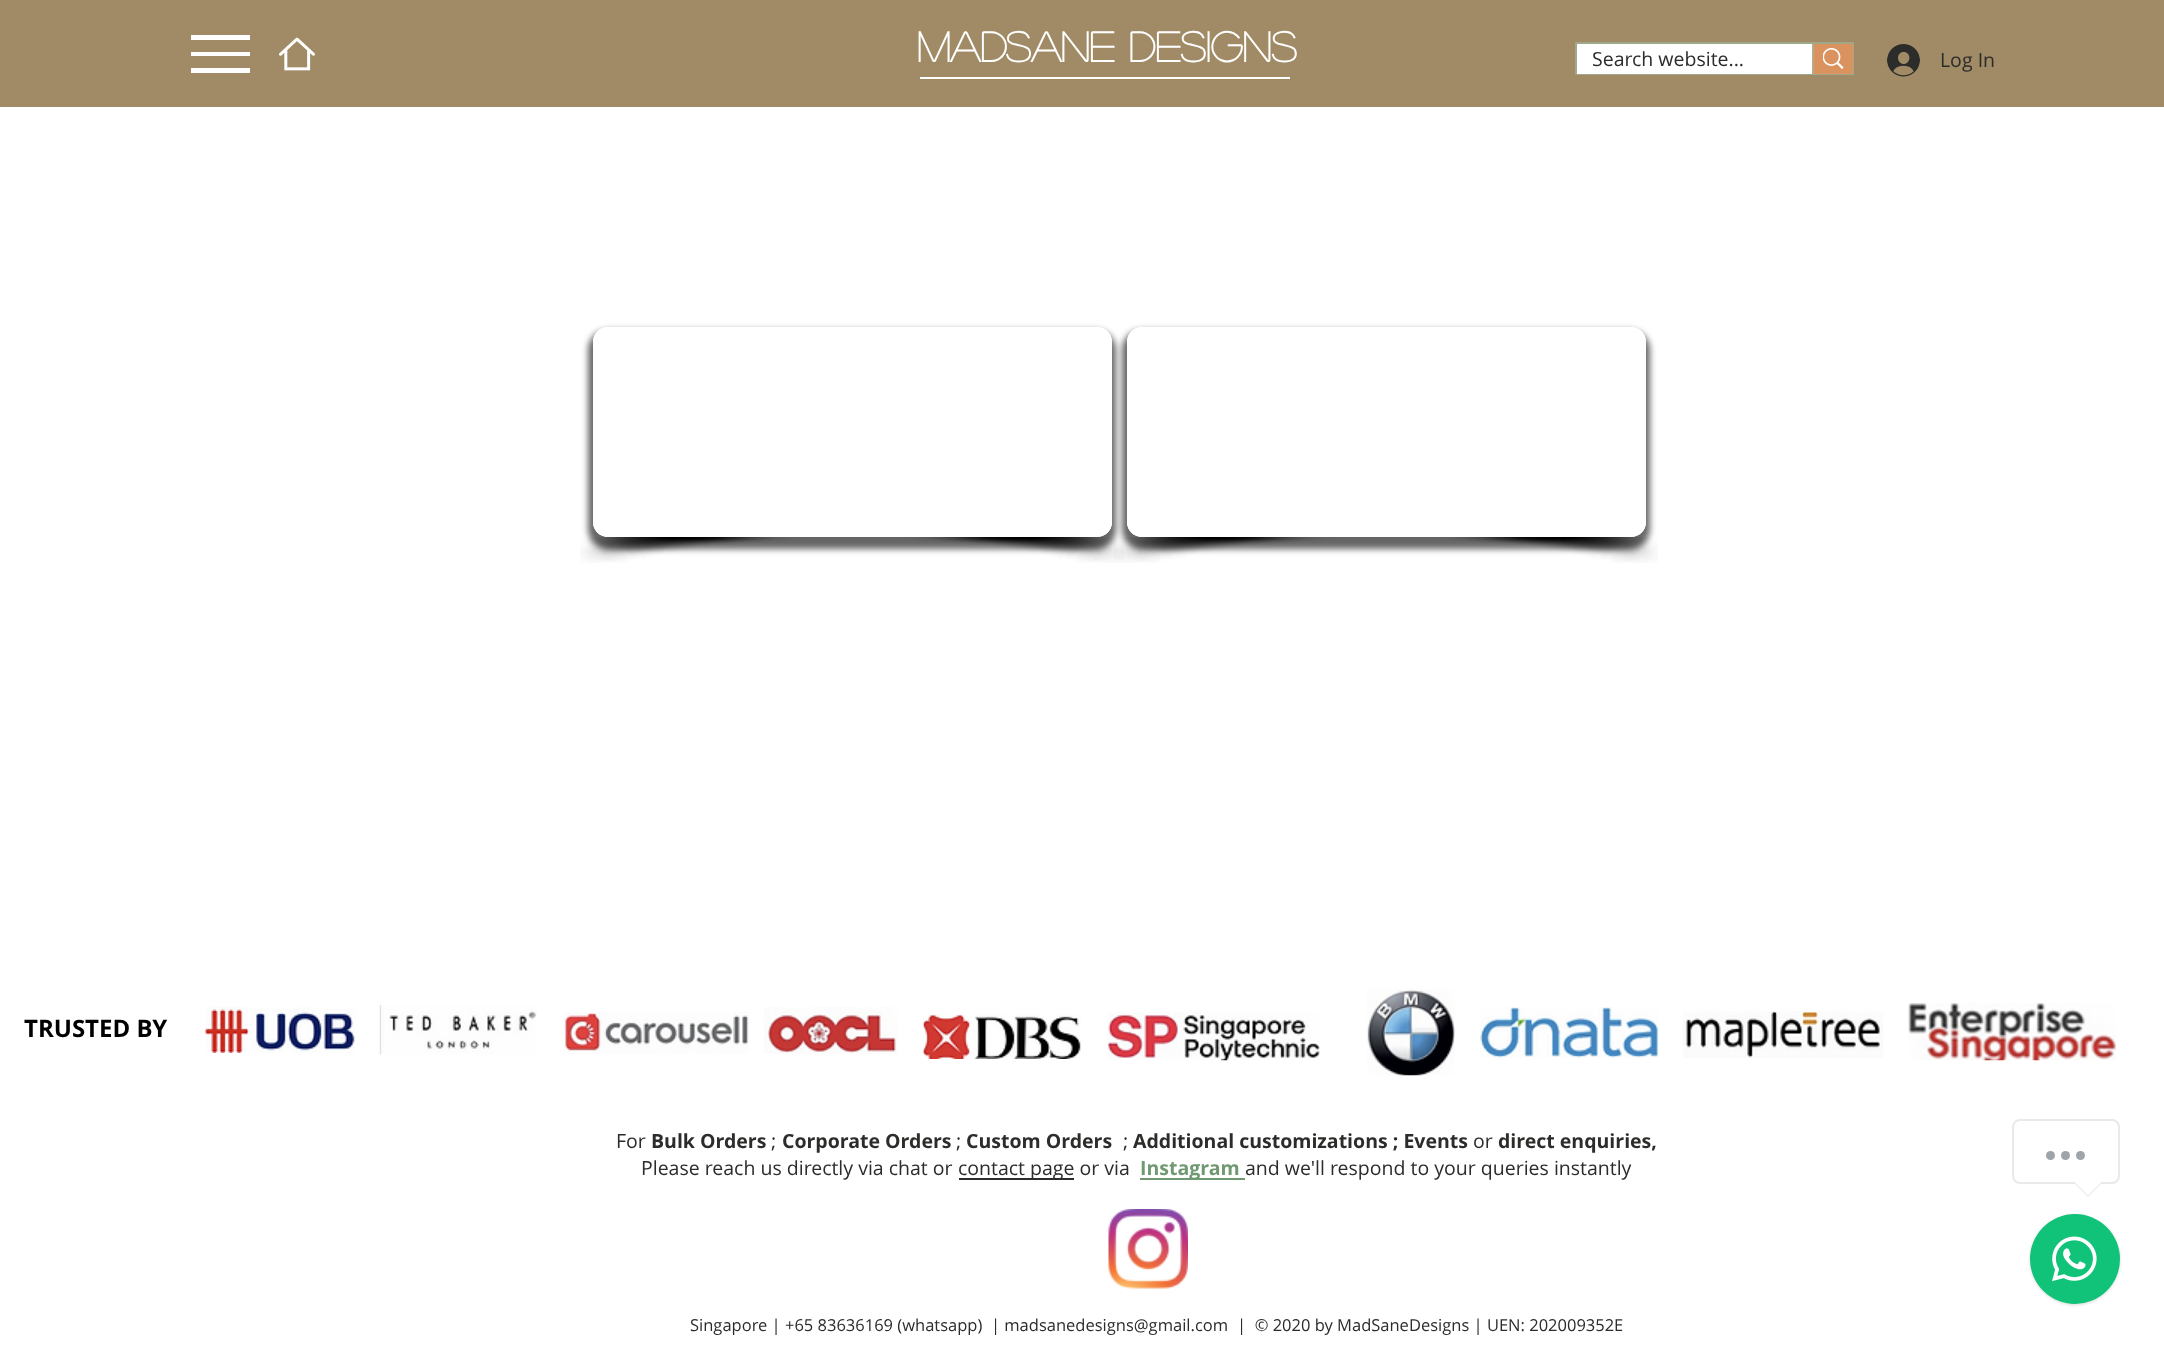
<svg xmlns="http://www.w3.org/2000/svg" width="2164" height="1348">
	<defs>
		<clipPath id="clip1"><path d="M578 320H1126V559H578ZM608 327H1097C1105.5 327 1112 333.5 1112 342V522C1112 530.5 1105.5 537 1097 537H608C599.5 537 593 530.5 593 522V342C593 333.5 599.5 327 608 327Z" clip-rule="evenodd" /></clipPath>
		<clipPath id="clip2"><path d="M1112 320H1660V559H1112ZM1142 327H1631C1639.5 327 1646 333.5 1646 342V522C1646 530.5 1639.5 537 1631 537H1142C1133.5 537 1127 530.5 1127 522V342C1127 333.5 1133.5 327 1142 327Z" clip-rule="evenodd" /></clipPath>
	</defs>
	<rect width="100%" height="100%" fill="#FFFFFF" />
	<rect x="0" y="0" width="2164" height="107" fill="#A08B66" />
	<rect x="191" y="68" width="59" height="5" fill="#FFFFFF" />
	<rect x="191" y="35" width="59" height="5" fill="#FFFFFF" />
	<rect x="191" y="52" width="59" height="4" fill="#FFFFFF" />
	<image x="279" y="37" width="36" height="34" href="assets/img1.png" />
	<text x="917" y="62" font-family="'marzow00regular'" font-size="42" font-weight="700" fill="#FFFFFF">MADSANE DESIGNS</text>
	<rect x="1576" y="43" width="277" height="31" fill="none" stroke="#A1A88A" stroke-width="2" />
	<rect x="1577" y="44" width="235" height="30" fill="#FFFFFF" />
	<text x="1592" y="66" font-family="Open Sans" font-size="19.5" fill="#2C2C2B">Search website...</text>
	<rect x="1814" y="44" width="39" height="30" fill="#DA935F" />
	<rect x="1812" y="44" width="2" height="30" fill="#B8AB87" />
	<image x="1823" y="48" width="21" height="21" href="assets/img2.png" />
	<image x="1887" y="44" width="33" height="33" href="assets/img3.png" />
	<text x="1940" y="67" font-family="Open Sans" font-size="19.5" fill="#2C2C2B">Log In</text>
	<rect x="920" y="77" width="370" height="2" fill="#FFFFFF" />
	<image x="580" y="537" width="230" height="26" href="assets/img4.png" />
	<image x="894" y="537" width="230" height="26" href="assets/img5.png" />
	<g clip-path="url(#clip1)">
		<rect x="588" y="330" width="528" height="219" rx="20" fill="#000000" fill-opacity="0.6" filter="blur(3px)" />
	</g>
	<rect x="594.5" y="328.5" width="516" height="207" rx="13.5" fill="none" stroke="#FFFFFF" stroke-width="3" />
	<image x="1114" y="537" width="230" height="26" href="assets/img6.png" />
	<image x="1428" y="537" width="230" height="26" href="assets/img5.png" />
	<g clip-path="url(#clip2)">
		<rect x="1122" y="330" width="528" height="219" rx="20" fill="#000000" fill-opacity="0.6" filter="blur(3px)" />
	</g>
	<rect x="1128.5" y="328.5" width="516" height="207" rx="13.5" fill="none" stroke="#FFFFFF" stroke-width="3" />
	<text x="24" y="1037" font-family="Open Sans" font-size="24" font-weight="700" fill="#000000">TRUSTED BY</text>
	<image x="205" y="1006" width="150" height="47" href="assets/img7.png" />
	<image x="379" y="1005" width="158" height="50" href="assets/img8.png" />
	<image x="563" y="1012" width="186" height="42" href="assets/img9.png" />
	<image x="764" y="1007" width="134" height="47" href="assets/img10.png" />
	<image x="922" y="1014" width="159" height="45" href="assets/img11.png" />
	<image x="1107" y="1012" width="213" height="49" href="assets/img12.png" />
	<image x="1367" y="989" width="88" height="87" href="assets/img13.png" />
	<image x="1480" y="1007" width="179" height="51" href="assets/img14.png" />
	<image x="1683" y="1011" width="200" height="47" href="assets/img15.png" />
	<image x="1908" y="1003" width="209" height="58" href="assets/img16.png" />
	<text x="616" y="1148" font-family="Open Sans" font-size="19.5" fill="#2C2C2B">For</text>
	<text x="651" y="1148" font-family="Open Sans" font-size="19.5" font-weight="700" fill="#2C2C2B">Bulk Orders</text>
	<text x="771" y="1148" font-family="Open Sans" font-size="19.5" fill="#2C2C2B">;</text>
	<text x="782" y="1148" font-family="Open Sans" font-size="19.5" font-weight="700" fill="#2C2C2B">Corporate Orders</text>
	<text x="956" y="1148" font-family="Open Sans" font-size="19.5" fill="#2C2C2B">;</text>
	<text x="966" y="1148" font-family="Open Sans" font-size="19.5" font-weight="700" fill="#2C2C2B">Custom Orders</text>
	<text x="1123" y="1148" font-family="Open Sans" font-size="19.5" fill="#2C2C2B">;</text>
	<text x="1133" y="1148" font-family="Open Sans" font-size="19.5" font-weight="700" fill="#2C2C2B">Additional customizations ; Events</text>
	<text x="1473" y="1148" font-family="Open Sans" font-size="19.5" fill="#2C2C2B">or</text>
	<text x="1498" y="1148" font-family="Open Sans" font-size="19.5" font-weight="700" fill="#2C2C2B">direct enquiries,</text>
	<text x="641" y="1175" font-family="Open Sans" font-size="19.5" fill="#2C2C2B">Please reach us directly via chat or</text>
	<rect x="959" y="1178" width="115" height="2" fill="#2C2C2B" />
	<text x="958" y="1175" font-family="Open Sans" font-size="19.5" fill="#2C2C2B">contact page or via</text>
	<rect x="1140" y="1178" width="105" height="2" fill="#6F9971" />
	<text x="1140" y="1175" font-family="Open Sans" font-size="19.5" font-weight="700" fill="#6F9971">Instagram</text>
	<text x="1245" y="1175" font-family="Open Sans" font-size="19.5" fill="#2C2C2B">and we'll respond to your queries instantly</text>
	<image x="1108" y="1209" width="80" height="80" href="assets/img17.png" />
	<g font-family="Open Sans" font-size="16.5" fill="#2C2C2B">
		<text x="690" y="1331" xml:space="preserve">Singapore | +65 83636169 (whatsapp)  | madsanedesigns@gmail.com</text>
		<text x="1237" y="1331" xml:space="preserve">|  © 2020 by MadSaneDesigns | UEN: 202009352E</text>
	</g>
	<rect x="2013" y="1120" width="106" height="63" rx="7" fill="none" stroke="#E9E9E9" stroke-width="2" />
	<circle cx="2050.5" cy="1155.5" r="4.5" fill="#9FA4A8" />
	<circle cx="2065.5" cy="1155.5" r="4.5" fill="#9FA4A8" />
	<circle cx="2080.5" cy="1155.5" r="4.5" fill="#9FA4A8" />
	<path d="M2073 1182H2103L2088 1197Z" fill="#E9E9E9" />
	<path d="M2074.5 1182H2101.5L2088 1195.5Z" fill="#FFFFFF" />
	<rect x="2030" y="1215" width="90" height="90" rx="45" fill="#000000" fill-opacity="0.15" filter="blur(1.5px)" />
	<circle cx="2075" cy="1259" r="45" fill="#10C379" />
	<image x="2052" y="1236" width="45" height="46" href="assets/img18.png" />
</svg>
